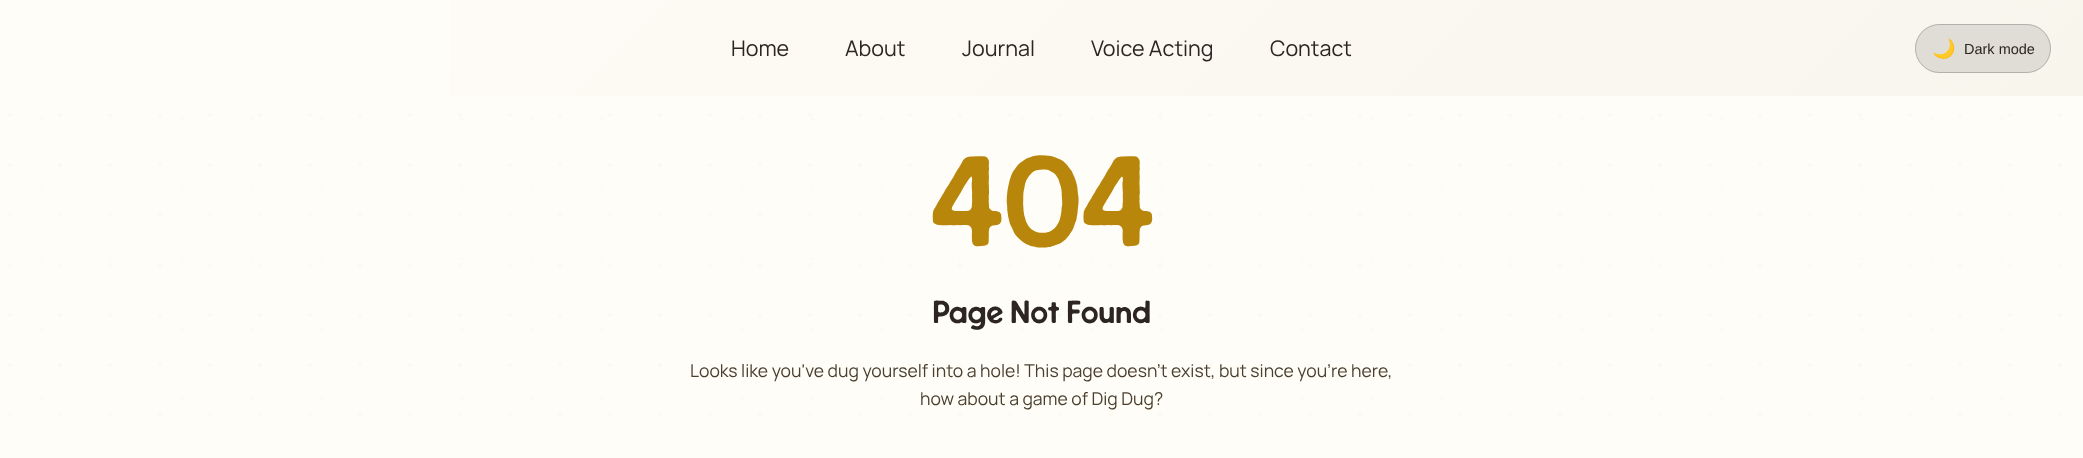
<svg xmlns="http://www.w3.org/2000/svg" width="2083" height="458">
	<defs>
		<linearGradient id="g1" gradientUnits="userSpaceOnUse" x1="497" y1="-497" x2="1586" y2="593"><stop offset="0" stop-color="#FFFDF7" /><stop offset="1" stop-color="#F8F5ED" /></linearGradient>
	</defs>
	<rect width="100%" height="100%" fill="#FFFDF7" />
	<path d="M48 132H2028.2" fill="none" stroke="#FEFBF2" stroke-width="2" stroke-linecap="round" stroke-dasharray="0 60" />
	<path d="M48 192H2028.2" fill="none" stroke="#FEFBF2" stroke-width="2" stroke-linecap="round" stroke-dasharray="0 60" />
	<path d="M48 252H2028.2" fill="none" stroke="#FEFBF2" stroke-width="2" stroke-linecap="round" stroke-dasharray="0 60" />
	<path d="M48 312H2028.2" fill="none" stroke="#FEFBF2" stroke-width="2" stroke-linecap="round" stroke-dasharray="0 60" />
	<path d="M48 372H2028.2" fill="none" stroke="#FEFBF2" stroke-width="2" stroke-linecap="round" stroke-dasharray="0 60" />
	<path d="M48 432H2028.2" fill="none" stroke="#FEFBF2" stroke-width="2" stroke-linecap="round" stroke-dasharray="0 60" />
	<path d="M42 119H2072.2" fill="none" stroke="#FDFAF4" stroke-width="3" stroke-linecap="round" stroke-dasharray="0 70" />
	<path d="M42 189H2072.2" fill="none" stroke="#FDFAF4" stroke-width="3" stroke-linecap="round" stroke-dasharray="0 70" />
	<path d="M42 259H2072.2" fill="none" stroke="#FDFAF4" stroke-width="3" stroke-linecap="round" stroke-dasharray="0 70" />
	<path d="M42 329H2072.2" fill="none" stroke="#FDFAF4" stroke-width="3" stroke-linecap="round" stroke-dasharray="0 70" />
	<path d="M42 399H2072.2" fill="none" stroke="#FDFAF4" stroke-width="3" stroke-linecap="round" stroke-dasharray="0 70" />
	<path d="M10 115H2060.2" fill="none" stroke="#FDF9F0" stroke-width="4" stroke-linecap="round" stroke-dasharray="0 50" />
	<path d="M10 165H2060.2" fill="none" stroke="#FDF9F0" stroke-width="4" stroke-linecap="round" stroke-dasharray="0 50" />
	<path d="M10 215H2060.2" fill="none" stroke="#FDF9F0" stroke-width="4" stroke-linecap="round" stroke-dasharray="0 50" />
	<path d="M10 265H2060.2" fill="none" stroke="#FDF9F0" stroke-width="4" stroke-linecap="round" stroke-dasharray="0 50" />
	<path d="M10 315H2060.2" fill="none" stroke="#FDF9F0" stroke-width="4" stroke-linecap="round" stroke-dasharray="0 50" />
	<path d="M10 365H2060.2" fill="none" stroke="#FDF9F0" stroke-width="4" stroke-linecap="round" stroke-dasharray="0 50" />
	<path d="M10 415H2060.2" fill="none" stroke="#FDF9F0" stroke-width="4" stroke-linecap="round" stroke-dasharray="0 50" />
	<rect x="449" y="0" width="1634" height="96" fill="url(#g1)" />
	<g font-family="Manrope" font-size="21.5" fill="#2D2520">
		<text x="731" y="56">Home</text>
		<text x="845" y="56">About</text>
		<text x="962" y="56">Journal</text>
		<text x="1091" y="56">Voice Acting</text>
		<text x="1270" y="56">Contact</text>
	</g>
	<rect x="1915" y="24" width="136" height="49" rx="24.5" fill="#E0DDD6" />
	<rect x="1915.5" y="24.5" width="135" height="48" rx="24" fill="none" stroke="#000000" stroke-opacity="0.2" />
	<text x="1932" y="55" font-family="Noto Color Emoji" font-size="19" fill="#2D2520">🌙</text>
	<text x="1964" y="54" font-family="Liberation Sans" font-size="14.5" fill="#2D2520">Dark mode</text>
	<text x="929" y="246" font-family="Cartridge" font-size="128" letter-spacing="-2.5" fill="#B8860B">404</text>
	<text x="932" y="323" font-family="Cartridge" font-size="32" fill="#2D2520">Page Not Found</text>
	<g font-family="Manrope" font-size="17.6" fill="#4A3F2F">
		<text x="690" y="377">Looks like you've dug yourself into a hole! This page doesn't exist, but since you're here,</text>
		<text x="920" y="405">how about a game of Dig Dug?</text>
	</g>
</svg>
